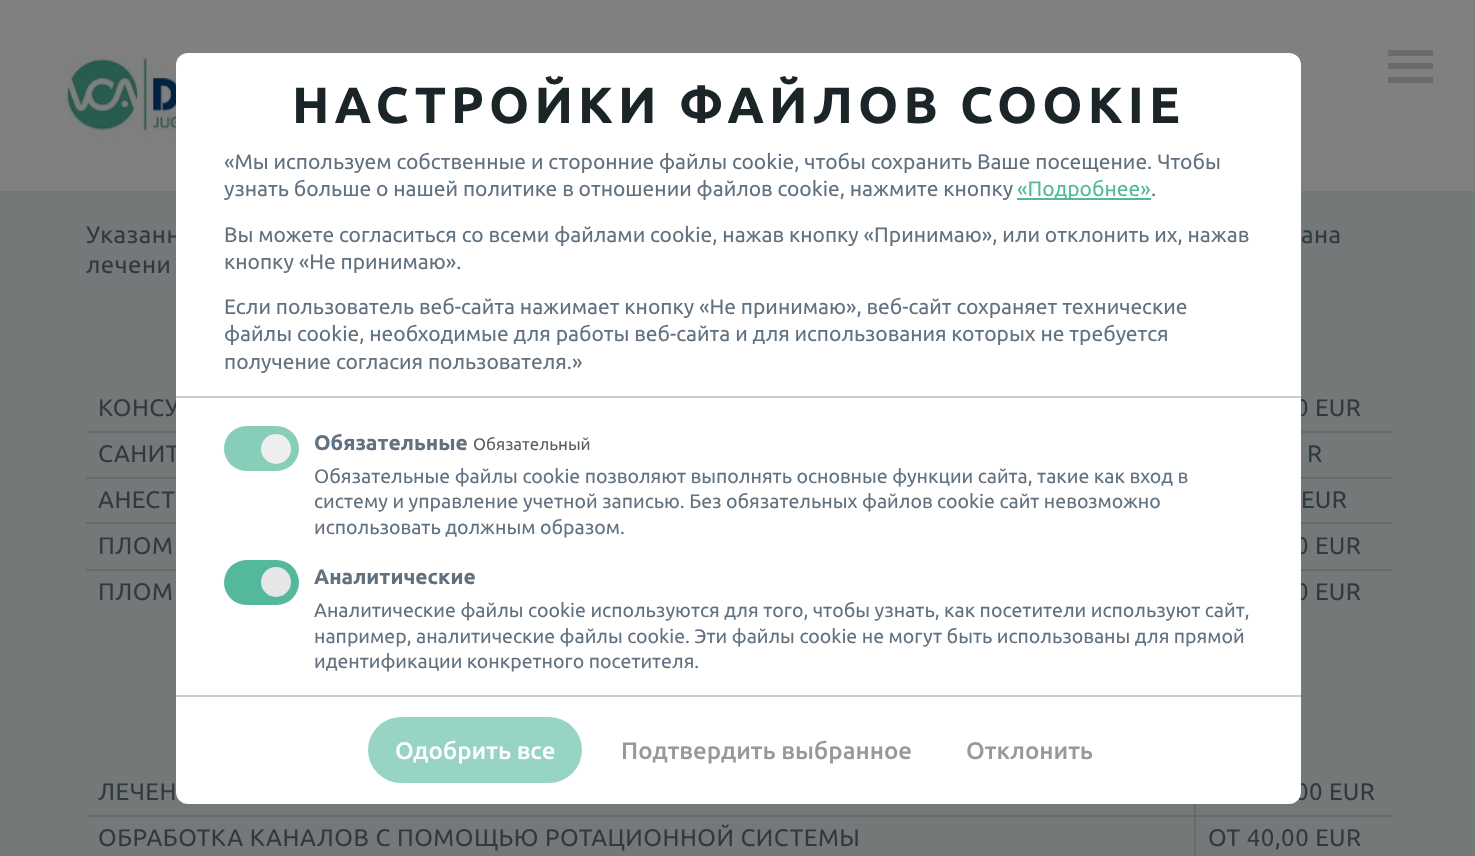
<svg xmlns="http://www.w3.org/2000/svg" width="1475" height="856">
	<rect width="100%" height="100%" fill="#747879" />
	<rect x="0" y="0" width="1475" height="191" fill="#808080" />
	<image x="66" y="53" width="122" height="93" href="assets/img1.png" />
	<rect x="1388" y="50" width="45" height="6" fill="#686B6C" />
	<rect x="1388" y="63" width="45" height="6" fill="#686B6C" />
	<rect x="1388" y="77" width="45" height="6" fill="#686B6C" />
	<g font-family="Ubuntu" font-size="24" letter-spacing="0.5" fill="#313940">
		<text x="86" y="243">Указанн</text>
		<text x="98" y="416">КОНСУ</text>
		<text x="1295" y="416">0 EUR</text>
		<text x="98" y="462">САНИТ</text>
		<text x="1295" y="554">0 EUR</text>
		<text x="1295" y="600">0 EUR</text>
		<text x="1295" y="800">00 EUR</text>
	</g>
	<rect x="176" y="53" width="1125" height="751" rx="12" fill="#FFFFFF" />
	<rect x="176" y="396" width="1125" height="2" fill="#CCCCCC" />
	<text x="292" y="123" font-family="Ubuntu" font-size="51" font-weight="700" letter-spacing="5.1" fill="#1B2528">НАСТРОЙКИ ФАЙЛОВ COOKIE</text>
	<g font-family="Ubuntu" font-size="21" fill="#61717F">
		<text x="224" y="169">«Мы используем собственные и сторонние файлы cookie, чтобы сохранить Ваше посещение. Чтобы</text>
		<text x="224" y="196">узнать больше о нашей политике в отношении файлов cookie, нажмите кнопку</text>
	</g>
	<rect x="1017" y="198" width="134" height="2" fill="#53B89C" />
	<text x="1017" y="196" font-family="Ubuntu" font-size="21" fill="#53B89C">«Подробнее»</text>
	<g font-family="Ubuntu" font-size="21" fill="#61717F">
		<text x="1151" y="196">.</text>
		<text x="224" y="242">Вы можете согласиться со всеми файлами cookie, нажав кнопку «Принимаю», или отклонить их, нажав</text>
		<text x="224" y="269">кнопку «Не принимаю».</text>
		<text x="224" y="314">Если пользователь веб-сайта нажимает кнопку «Не принимаю», веб-сайт сохраняет технические</text>
		<text x="224" y="341">файлы cookie, необходимые для работы веб-сайта и для использования которых не требуется</text>
		<text x="224" y="369">получение согласия пользователя.»</text>
	</g>
	<rect x="176" y="695" width="1125" height="2" fill="#CCCCCC" />
	<rect x="224" y="426" width="75" height="45" rx="22.5" fill="#87CDBA" />
	<circle cx="276" cy="449" r="15" fill="#EEEEEE" />
	<text x="314" y="450" font-family="Ubuntu" font-size="21" font-weight="700" fill="#61717F">Обязательные</text>
	<text x="473" y="450" font-family="Ubuntu" font-size="16.75" fill="#5C5C5C">Обязательный</text>
	<g font-family="Ubuntu" font-size="19.5" fill="#61717F">
		<text x="314" y="483">Обязательные файлы cookie позволяют выполнять основные функции сайта, такие как вход в</text>
		<text x="314" y="508">систему и управление учетной записью. Без обязательных файлов cookie сайт невозможно</text>
		<text x="314" y="534">использовать должным образом.</text>
	</g>
	<rect x="224" y="560" width="75" height="45" rx="22.5" fill="#53B89C" />
	<circle cx="276" cy="582" r="15" fill="#E6E6E6" />
	<text x="314" y="584" font-family="Ubuntu" font-size="21" font-weight="700" fill="#61717F">Аналитические</text>
	<g font-family="Ubuntu" font-size="19.5" fill="#61717F">
		<text x="314" y="617">Аналитические файлы cookie используются для того, чтобы узнать, как посетители используют сайт,</text>
		<text x="314" y="643">например, аналитические файлы cookie. Эти файлы cookie не могут быть использованы для прямой</text>
		<text x="314" y="668">идентификации конкретного посетителя.</text>
	</g>
	<rect x="368" y="717" width="214" height="66" rx="33" fill="#98D4C4" />
	<text x="395" y="759" font-family="Ubuntu" font-size="24" font-weight="500" fill="#FFFFFF">Одобрить все</text>
	<g font-family="Ubuntu" font-size="24" font-weight="500" fill="#999999">
		<text x="621" y="759">Подтвердить выбранное</text>
		<text x="966" y="759">Отклонить</text>
	</g>
	<g font-family="Ubuntu" font-size="24" letter-spacing="0.5" fill="#313940">
		<text x="1301" y="243">ана</text>
		<text x="86" y="273">лечени</text>
	</g>
	<rect x="86" y="431" width="90" height="2" fill="#686B6C" />
	<rect x="1301" y="431" width="91" height="2" fill="#686B6C" />
	<rect x="86" y="477" width="90" height="2" fill="#686B6C" />
	<rect x="1301" y="477" width="91" height="2" fill="#686B6C" />
	<text x="1307" y="462" font-family="Ubuntu" font-size="24" letter-spacing="0.5" fill="#313940">R</text>
	<rect x="86" y="522" width="90" height="2" fill="#686B6C" />
	<text x="98" y="508" font-family="Ubuntu" font-size="24" letter-spacing="0.5" fill="#313940">АНЕСТ</text>
	<rect x="1301" y="522" width="91" height="2" fill="#686B6C" />
	<text x="1301" y="508" font-family="Ubuntu" font-size="24" letter-spacing="0.5" fill="#313940">EUR</text>
	<rect x="86" y="569" width="90" height="2" fill="#686B6C" />
	<text x="98" y="554" font-family="Ubuntu" font-size="24" letter-spacing="0.5" fill="#313940">ПЛОМ</text>
	<rect x="1301" y="569" width="91" height="2" fill="#686B6C" />
	<text x="98" y="600" font-family="Ubuntu" font-size="24" letter-spacing="0.5" fill="#313940">ПЛОМ</text>
	<rect x="1194" y="815" width="2" height="41" fill="#686B6C" />
	<rect x="1194" y="815" width="198" height="2" fill="#686B6C" />
	<rect x="1194" y="804" width="2" height="12" fill="#686B6C" />
	<rect x="86" y="815" width="1110" height="2" fill="#686B6C" />
	<g font-family="Ubuntu" font-size="24" letter-spacing="0.5" fill="#313940">
		<text x="98" y="800">ЛЕЧЕН</text>
		<text x="98" y="846">ОБРАБОТКА КАНАЛОВ С ПОМОЩЬЮ РОТАЦИОННОЙ СИСТЕМЫ</text>
		<text x="1208" y="846">ОТ 40,00 EUR</text>
	</g>
</svg>
